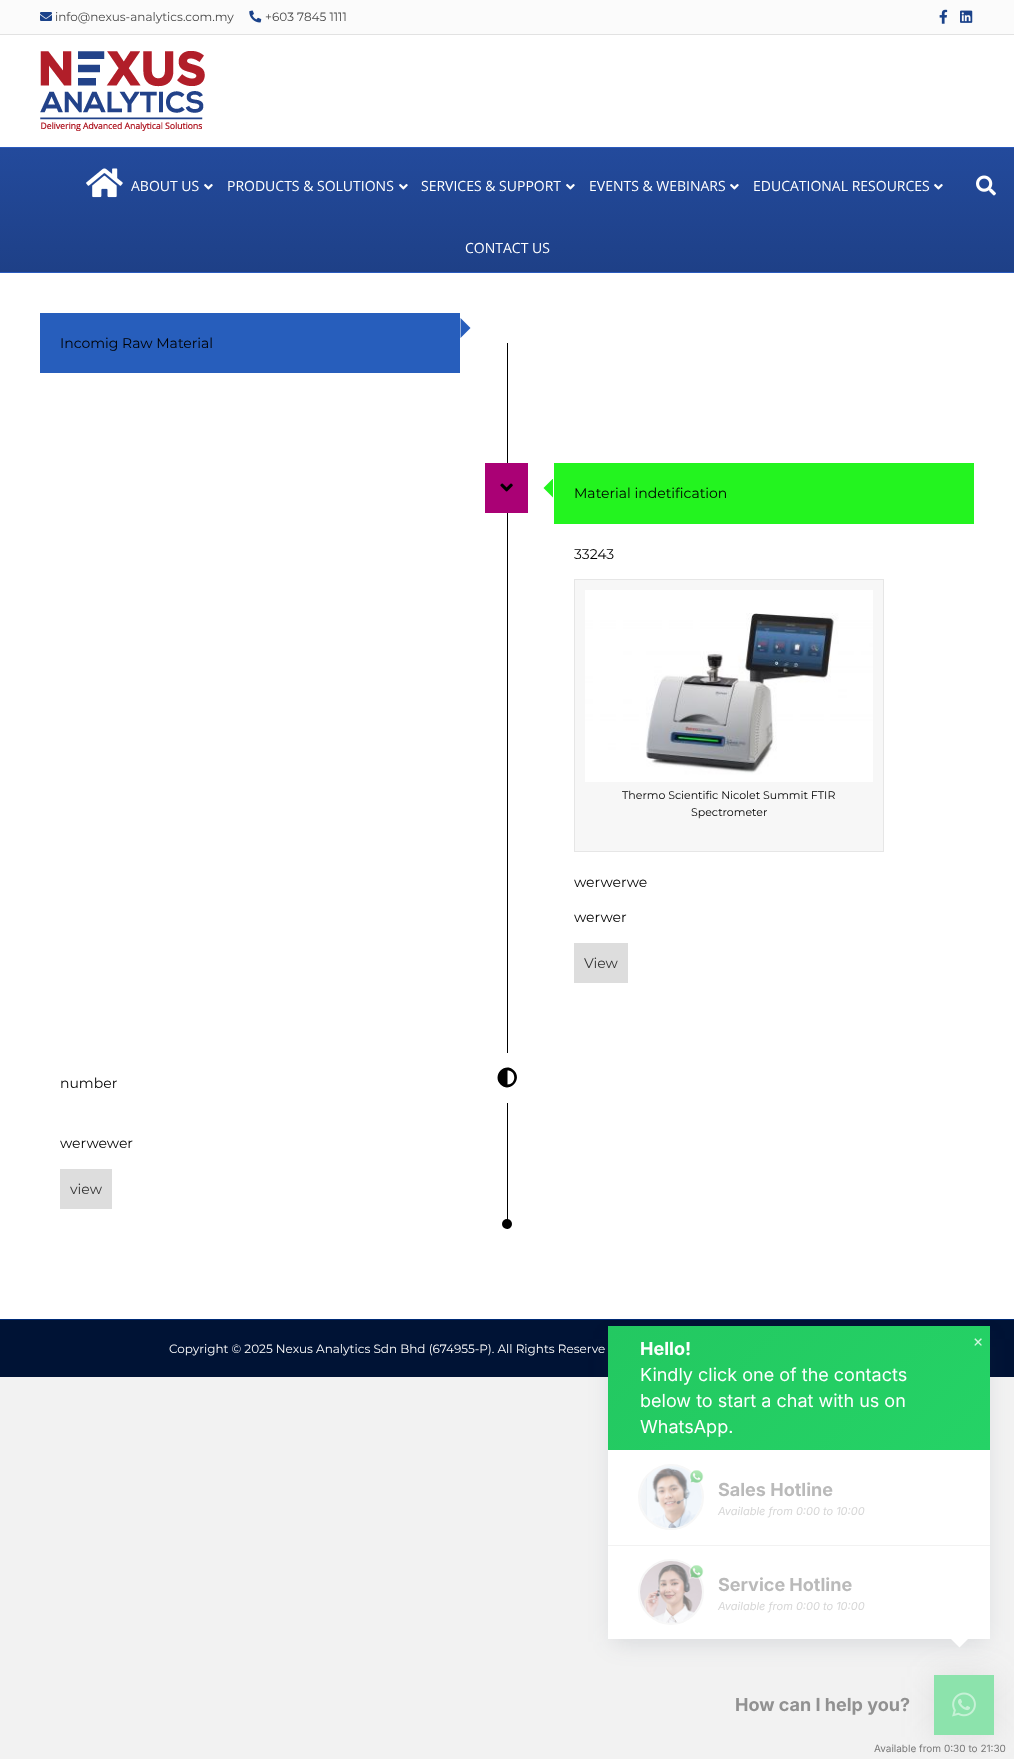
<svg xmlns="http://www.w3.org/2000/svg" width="1014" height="1759">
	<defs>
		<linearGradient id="g1" gradientUnits="userSpaceOnUse" x1="507" y1="148" x2="507" y2="272"><stop offset="0" stop-color="#234A9C" /><stop offset="1" stop-color="#1E4087" /></linearGradient>
		<clipPath id="clip1"><rect x="460" y="463" width="93" height="50" /></clipPath>
		<linearGradient id="g2" gradientUnits="userSpaceOnUse" x1="926" y1="1515" x2="673" y2="1262"><stop offset="0" stop-color="#25D366" /><stop offset="1" stop-color="#23C861" /></linearGradient>
	</defs>
	<rect width="100%" height="100%" fill="#F2F2F2" />
	<rect x="0" y="0" width="1014" height="34" fill="#FBFBFB" />
	<rect x="0" y="34" width="1014" height="1" fill="#E2E2E2" />
	<image x="40" y="12" width="12" height="9" href="assets/img1.png" />
	<text x="55" y="21" font-family="Montserrat" font-size="12" fill="#494949">info@nexus-analytics.com.my</text>
	<image x="249" y="10" width="13" height="13" href="assets/img2.png" />
	<text x="265" y="21" font-family="Montserrat" font-size="12" fill="#494949">+603 7845 1111</text>
	<image x="939" y="9" width="9" height="15" href="assets/img3.png" />
	<image x="960" y="10" width="13" height="13" href="assets/img4.png" />
	<rect x="0" y="35" width="1014" height="112" fill="#FFFFFF" />
	<image x="40" y="51" width="165" height="80" href="assets/img5.png" />
	<rect x="0" y="148" width="1014" height="124" fill="url(#g1)" />
	<rect x="0" y="147" width="1014" height="1" fill="#2A5ABD" />
	<rect x="0" y="272" width="1014" height="1" fill="#2A5ABD" />
	<image x="86" y="168" width="37" height="30" href="assets/img6.png" />
	<text x="131" y="191" font-family="Open Sans" font-size="14" fill="#FFFFFF">ABOUT US</text>
	<image x="204" y="184" width="9" height="6" href="assets/img7.png" />
	<text x="227" y="191" font-family="Open Sans" font-size="14" fill="#FFFFFF">PRODUCTS &amp; SOLUTIONS</text>
	<image x="399" y="184" width="9" height="6" href="assets/img7.png" />
	<text x="421" y="191" font-family="Open Sans" font-size="14" fill="#FFFFFF">SERVICES &amp; SUPPORT</text>
	<image x="566" y="184" width="9" height="6" href="assets/img7.png" />
	<text x="589" y="191" font-family="Open Sans" font-size="14" fill="#FFFFFF">EVENTS &amp; WEBINARS</text>
	<image x="730" y="184" width="9" height="6" href="assets/img7.png" />
	<text x="753" y="191" font-family="Open Sans" font-size="14" fill="#FFFFFF">EDUCATIONAL RESOURCES</text>
	<image x="934" y="184" width="9" height="6" href="assets/img7.png" />
	<text x="465" y="253" font-family="Open Sans" font-size="14" fill="#FFFFFF">CONTACT US</text>
	<image x="976" y="175" width="20" height="21" href="assets/img8.png" />
	<rect x="0" y="273" width="1014" height="1046" fill="#FFFFFF" />
	<path d="M460.5 338V318L470.5 328Z" fill="#275EBC" />
	<rect x="40" y="313" width="420" height="60" fill="#275EBC" />
	<text x="60" y="348" font-family="Montserrat" font-size="14" fill="#000000">Incomig Raw Material</text>
	<rect x="507" y="343" width="1" height="886" fill="#000000" />
	<rect x="485" y="463" width="43" height="50" fill="#AA0175" />
	<image x="500" y="483" width="13" height="9" href="assets/img9.png" />
	<g clip-path="url(#clip1)">
		<path d="M553.5 478V498L543.5 488Z" fill="#23F41F" />
	</g>
	<rect x="554" y="463" width="420" height="61" fill="#23F41F" />
	<g font-family="Montserrat" font-size="14" fill="#000000">
		<text x="574" y="498">Material indetification</text>
		<text x="574" y="559">33243</text>
	</g>
	<rect x="574.5" y="579.5" width="309" height="272" fill="#F7F7F7" stroke="#E6E6E6" />
	<image x="585" y="590" width="288" height="192" href="assets/img10.png" />
	<g font-family="Montserrat" font-size="11" fill="#000000">
		<text x="622" y="799">Thermo Scientific Nicolet Summit FTIR</text>
		<text x="691" y="816">Spectrometer</text>
	</g>
	<g font-family="Montserrat" font-size="14" fill="#000000">
		<text x="574" y="887">werwerwe</text>
		<text x="574" y="922">werwer</text>
	</g>
	<rect x="574" y="943" width="54" height="40" fill="#DDDDDD" />
	<text x="584" y="968" font-family="Montserrat" font-size="14" fill="#333333">View</text>
	<g font-family="Montserrat" font-size="14" fill="#000000">
		<text x="60" y="1088">number</text>
		<text x="60" y="1148">werwewer</text>
	</g>
	<rect x="60" y="1169" width="52" height="40" fill="#DDDDDD" />
	<text x="70" y="1194" font-family="Montserrat" font-size="14" fill="#333333">view</text>
	<rect x="507" y="1053" width="1" height="50" fill="#FFFFFF" />
	<path d="M500.5 1084.5C491.5 1075.5 505 1061.5 514 1070.5C523 1079.5 509.5 1093.5 500.5 1084.5ZM507.5 1084.5C516.5 1084.5 516.5 1070.5 507.5 1070.5Z" fill="#000000" />
	<circle cx="507" cy="1224" r="5" fill="#000000" />
	<rect x="0" y="1320" width="1014" height="57" fill="#001335" />
	<rect x="0" y="1319" width="1014" height="1" fill="#002B77" />
	<text x="169" y="1353" font-family="Montserrat" font-size="12" fill="#FFFFFF">Copyright © 2025 Nexus Analytics Sdn Bhd (674955-P). All Rights Reserve</text>
	<rect x="934" y="1677" width="60" height="60" fill="#797979" fill-opacity="0.16" filter="blur(16px)" />
	<rect x="934" y="1675" width="60" height="60" fill="#8CE3AC" />
	<rect x="613" y="1339" width="372" height="303" fill="#2D3E4F" fill-opacity="0.15" filter="blur(12.5px)" />
	<rect x="608" y="1450" width="382" height="189" fill="#FFFFFF" />
	<rect x="608" y="1326" width="382" height="124" fill="url(#g2)" />
	<text x="640" y="1355" font-family="Inter" font-size="18" font-weight="700" fill="#FFFFFF">Hello!</text>
	<g font-family="Inter" font-size="18" fill="#FFFFFF">
		<text x="640" y="1381">Kindly click one of the contacts</text>
		<text x="640" y="1407">below to start a chat with us on</text>
		<text x="640" y="1433">WhatsApp.</text>
	</g>
	<text x="973" y="1348" font-family="Liberation Serif" font-size="18" font-weight="700" fill="#D3F6E0">×</text>
	<circle cx="671" cy="1497" r="32" fill="none" stroke="#F7F7F7" stroke-width="2" />
	<image x="640" y="1466" width="62" height="62" href="assets/img11.png" />
	<image x="689" y="1470" width="15" height="14" href="assets/img12.png" />
	<text x="718" y="1496" font-family="Inter" font-size="18" font-weight="700" fill="#BABABA">Sales Hotline</text>
	<text x="718" y="1515" font-family="Inter" font-size="11" font-style="italic" fill="#D6D6D6">Available from 0:00 to 10:00</text>
	<rect x="608" y="1545" width="382" height="1" fill="#F2F2F2" />
	<circle cx="671" cy="1592" r="32" fill="none" stroke="#F7F7F7" stroke-width="2" />
	<image x="640" y="1561" width="62" height="62" href="assets/img13.png" />
	<image x="689" y="1565" width="15" height="14" href="assets/img14.png" />
	<text x="718" y="1591" font-family="Inter" font-size="18" font-weight="700" fill="#BABABA">Service Hotline</text>
	<text x="718" y="1610" font-family="Inter" font-size="11" font-style="italic" fill="#D6D6D6">Available from 0:00 to 10:00</text>
	<path d="M959.5 1629.5L968.5 1638.5L959.5 1647.5L950.5 1638.5Z" fill="#FFFFFF" />
	<text x="735" y="1711" font-family="Inter" font-size="18" font-weight="700" fill="#919191">How can I help you?</text>
	<image x="952" y="1692" width="24" height="25" href="assets/img15.png" />
	<text x="874" y="1752" font-family="Inter" font-size="10" fill="#797979">Available from 0:30 to 21:30</text>
</svg>
